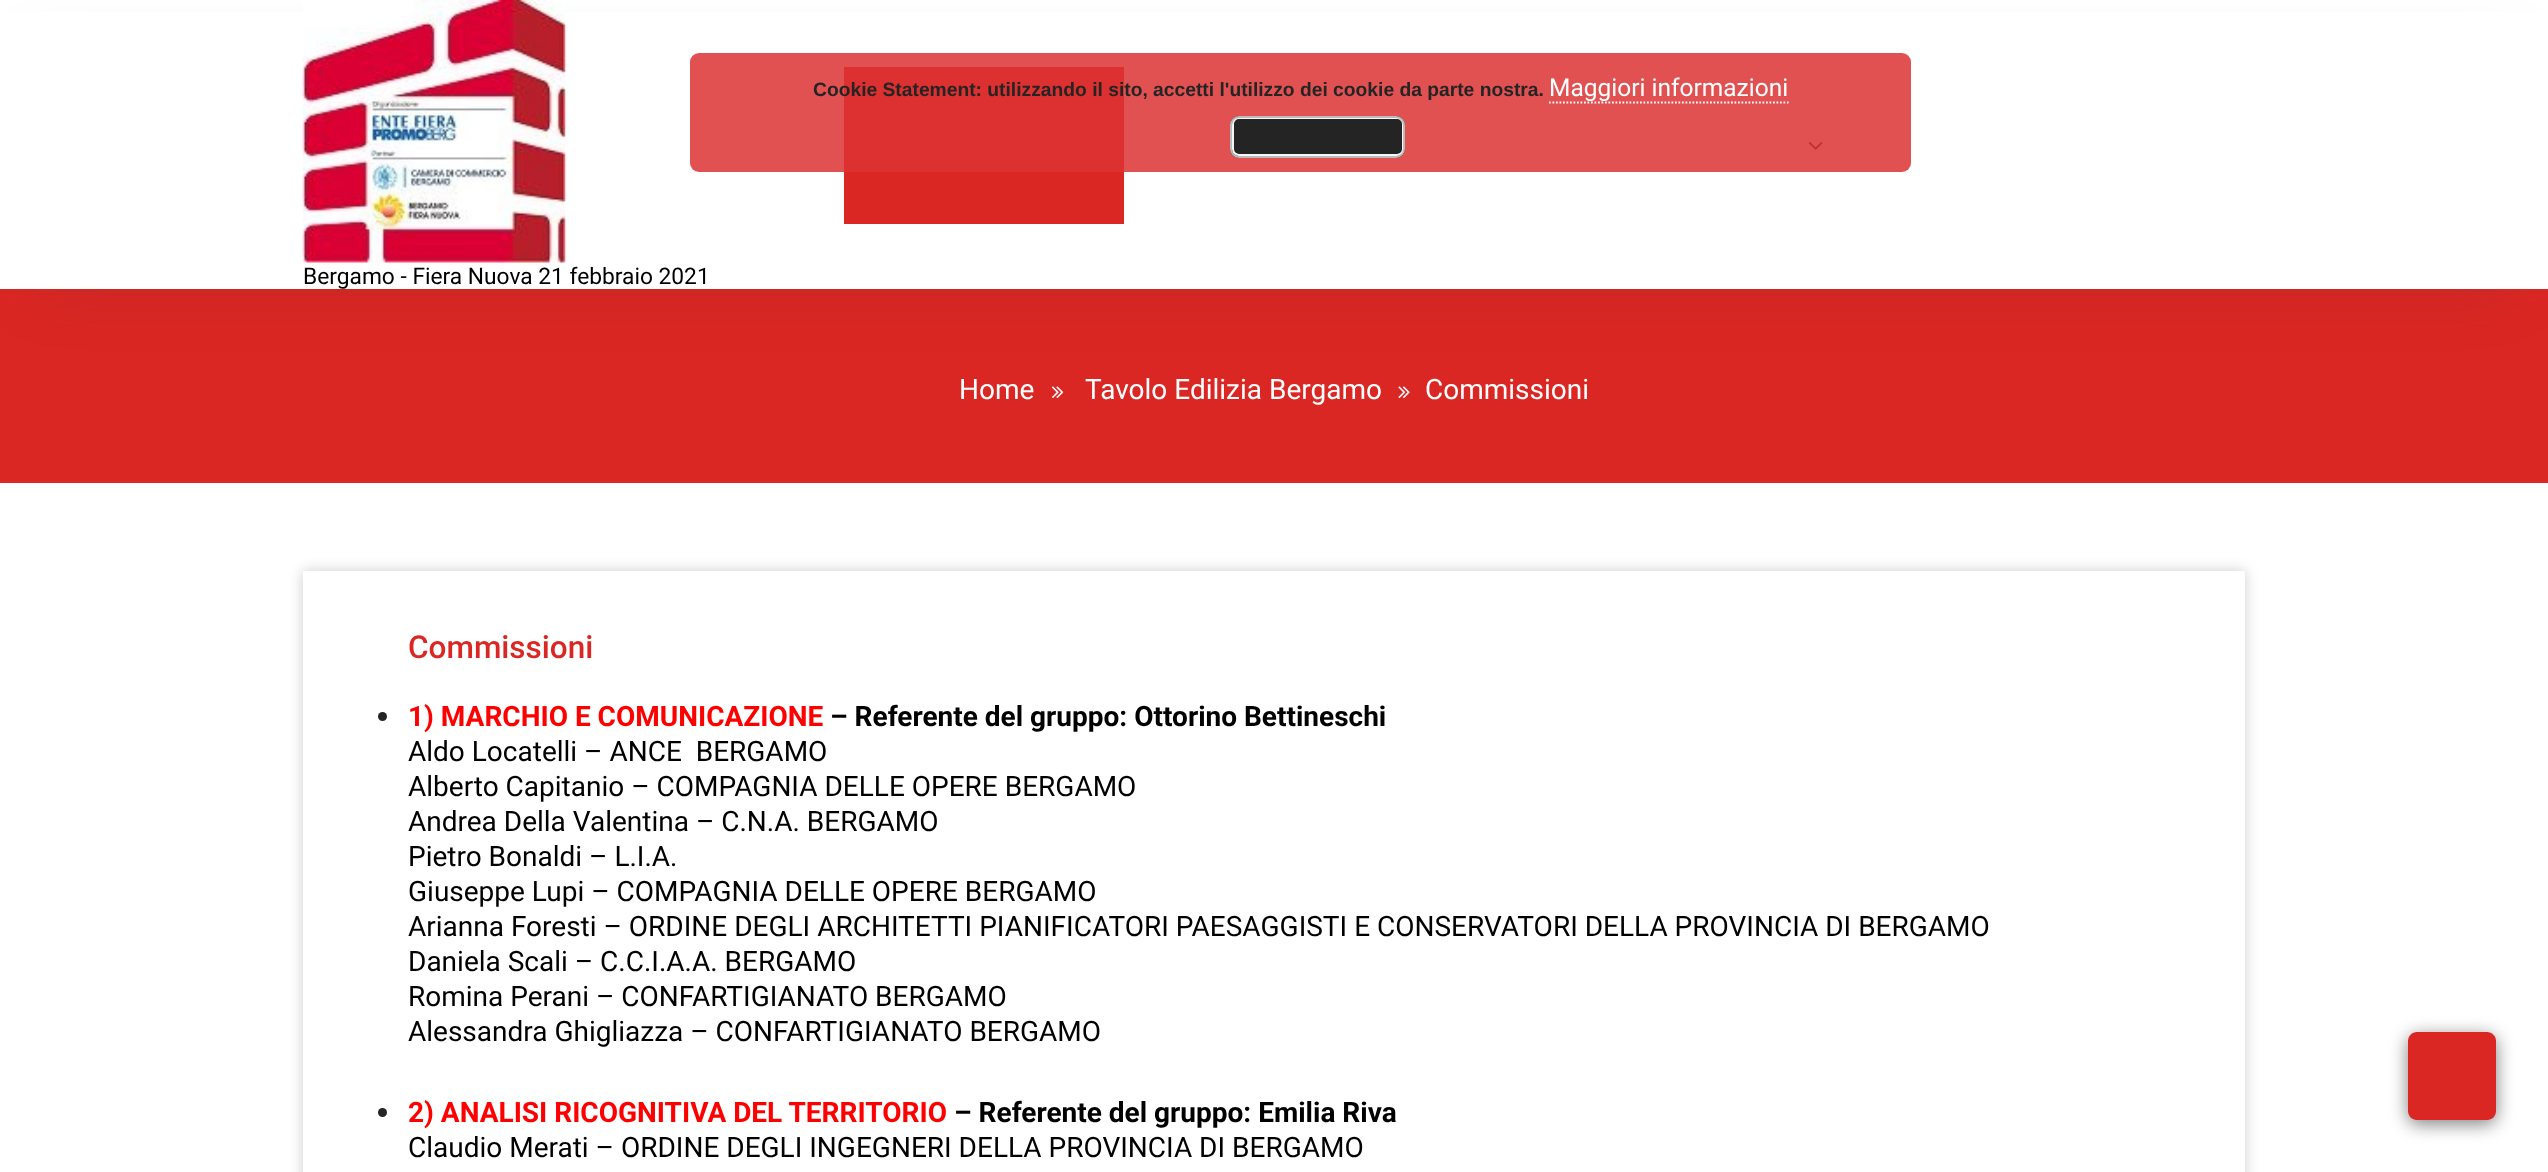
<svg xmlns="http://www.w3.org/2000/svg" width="2548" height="1172">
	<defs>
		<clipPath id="clip1"><path d="M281 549H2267V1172H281ZM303 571H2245V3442H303Z" clip-rule="evenodd" /></clipPath>
	</defs>
	<rect width="100%" height="100%" fill="#FFFFFF" />
	<rect x="0" y="289" width="2548" height="194" fill="#DB2723" />
	<rect x="35" y="61" width="2478" height="219" fill="#282C3F" fill-opacity="0.15" filter="blur(35px)" />
	<rect x="0" y="12" width="2548" height="277" fill="#FFFFFF" />
	<rect x="844" y="67" width="280" height="157" fill="#DB2723" />
	<image x="1808" y="142" width="15" height="8" href="assets/img1.png" />
	<rect x="690" y="53" width="1221" height="119" rx="9" fill="#DD3333" fill-opacity="0.85" />
	<text x="813" y="96" font-family="Liberation Sans" font-size="19.25" font-weight="700" fill="#242424">Cookie Statement: utilizzando il sito, accetti l'utilizzo dei cookie da parte nostra.</text>
	<path d="M1549 102.5H1788.5" fill="none" stroke="#FFFFFF" stroke-width="1.8" stroke-dasharray="1.75 1.75" />
	<text x="1549" y="96" font-family="Roboto" font-size="24.5" fill="#FFFFFF">Maggiori informazioni</text>
	<rect x="1230" y="116" width="175" height="42" rx="9" fill="#242424" />
	<rect x="1233" y="118" width="170" height="37" rx="6" fill="none" stroke="#F6F6F6" stroke-width="2" />
	<rect x="1231" y="117" width="173" height="40" rx="8" fill="none" stroke="#BBBBBB" stroke-width="2" />
	<image x="302" y="0" width="264" height="263" href="assets/img2.png" />
	<text x="303" y="284" font-family="Roboto" font-size="22.75" fill="#000000">Bergamo - Fiera Nuova 21 febbraio 2021</text>
	<text x="959" y="399" font-family="Roboto" font-size="28" fill="#FFFFFF">Home</text>
	<image x="1051" y="386" width="13" height="12" href="assets/img3.png" />
	<text x="1085" y="399" font-family="Roboto" font-size="28" fill="#FFFFFF">Tavolo Edilizia Bergamo</text>
	<image x="1398" y="386" width="12" height="12" href="assets/img4.png" />
	<text x="1425" y="399" font-family="Roboto" font-size="28" fill="#FFFFFF">Commissioni</text>
	<g clip-path="url(#clip1)">
		<rect x="303" y="571" width="1942" height="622" fill="#000000" fill-opacity="0.2" filter="blur(7px)" />
	</g>
	<text x="408" y="658" font-family="Roboto" font-size="31.5" font-weight="500" fill="#DB2723">Commissioni</text>
	<circle cx="382.5" cy="716.5" r="4.5" fill="#242424" />
	<text x="408" y="726" font-family="Roboto" font-size="28" font-weight="700" fill="#FF0000">1) MARCHIO E COMUNICAZIONE</text>
	<text x="830" y="726" font-family="Roboto" font-size="28" font-weight="700" fill="#000000">– Referente del gruppo: Ottorino Bettineschi</text>
	<g font-family="Roboto" font-size="28" fill="#000000">
		<text x="408" y="761" xml:space="preserve">Aldo Locatelli – ANCE  BERGAMO</text>
		<text x="408" y="796">Alberto Capitanio – COMPAGNIA DELLE OPERE BERGAMO</text>
		<text x="408" y="831">Andrea Della Valentina – C.N.A. BERGAMO</text>
		<text x="408" y="866">Pietro Bonaldi – L.I.A.</text>
		<text x="408" y="901">Giuseppe Lupi – COMPAGNIA DELLE OPERE BERGAMO</text>
		<text x="408" y="936">Arianna Foresti – ORDINE DEGLI ARCHITETTI PIANIFICATORI PAESAGGISTI E CONSERVATORI DELLA PROVINCIA DI BERGAMO</text>
		<text x="408" y="971">Daniela Scali – C.C.I.A.A. BERGAMO</text>
		<text x="408" y="1006">Romina Perani – CONFARTIGIANATO BERGAMO</text>
		<text x="408" y="1041">Alessandra Ghigliazza – CONFARTIGIANATO BERGAMO</text>
	</g>
	<circle cx="382.5" cy="1112.5" r="4.5" fill="#242424" />
	<text x="408" y="1122" font-family="Roboto" font-size="28" font-weight="700" fill="#FF0000">2) ANALISI RICOGNITIVA DEL TERRITORIO</text>
	<text x="954" y="1122" font-family="Roboto" font-size="28" font-weight="700" fill="#000000">– Referente del gruppo: Emilia Riva</text>
	<text x="408" y="1157" font-family="Roboto" font-size="28" fill="#000000">Claudio Merati – ORDINE DEGLI INGEGNERI DELLA PROVINCIA DI BERGAMO</text>
	<rect x="2408" y="1036" width="88" height="88" rx="9" fill="#000000" fill-opacity="0.5" filter="blur(9px)" />
	<path d="M2487 1120H2417C2412 1120 2408 1116 2408 1111V1041C2408 1036 2412 1032 2417 1032H2487C2492 1032 2496 1036 2496 1041V1111C2496 1116 2492 1120 2487 1120Z" fill="#DB2723" />
</svg>
